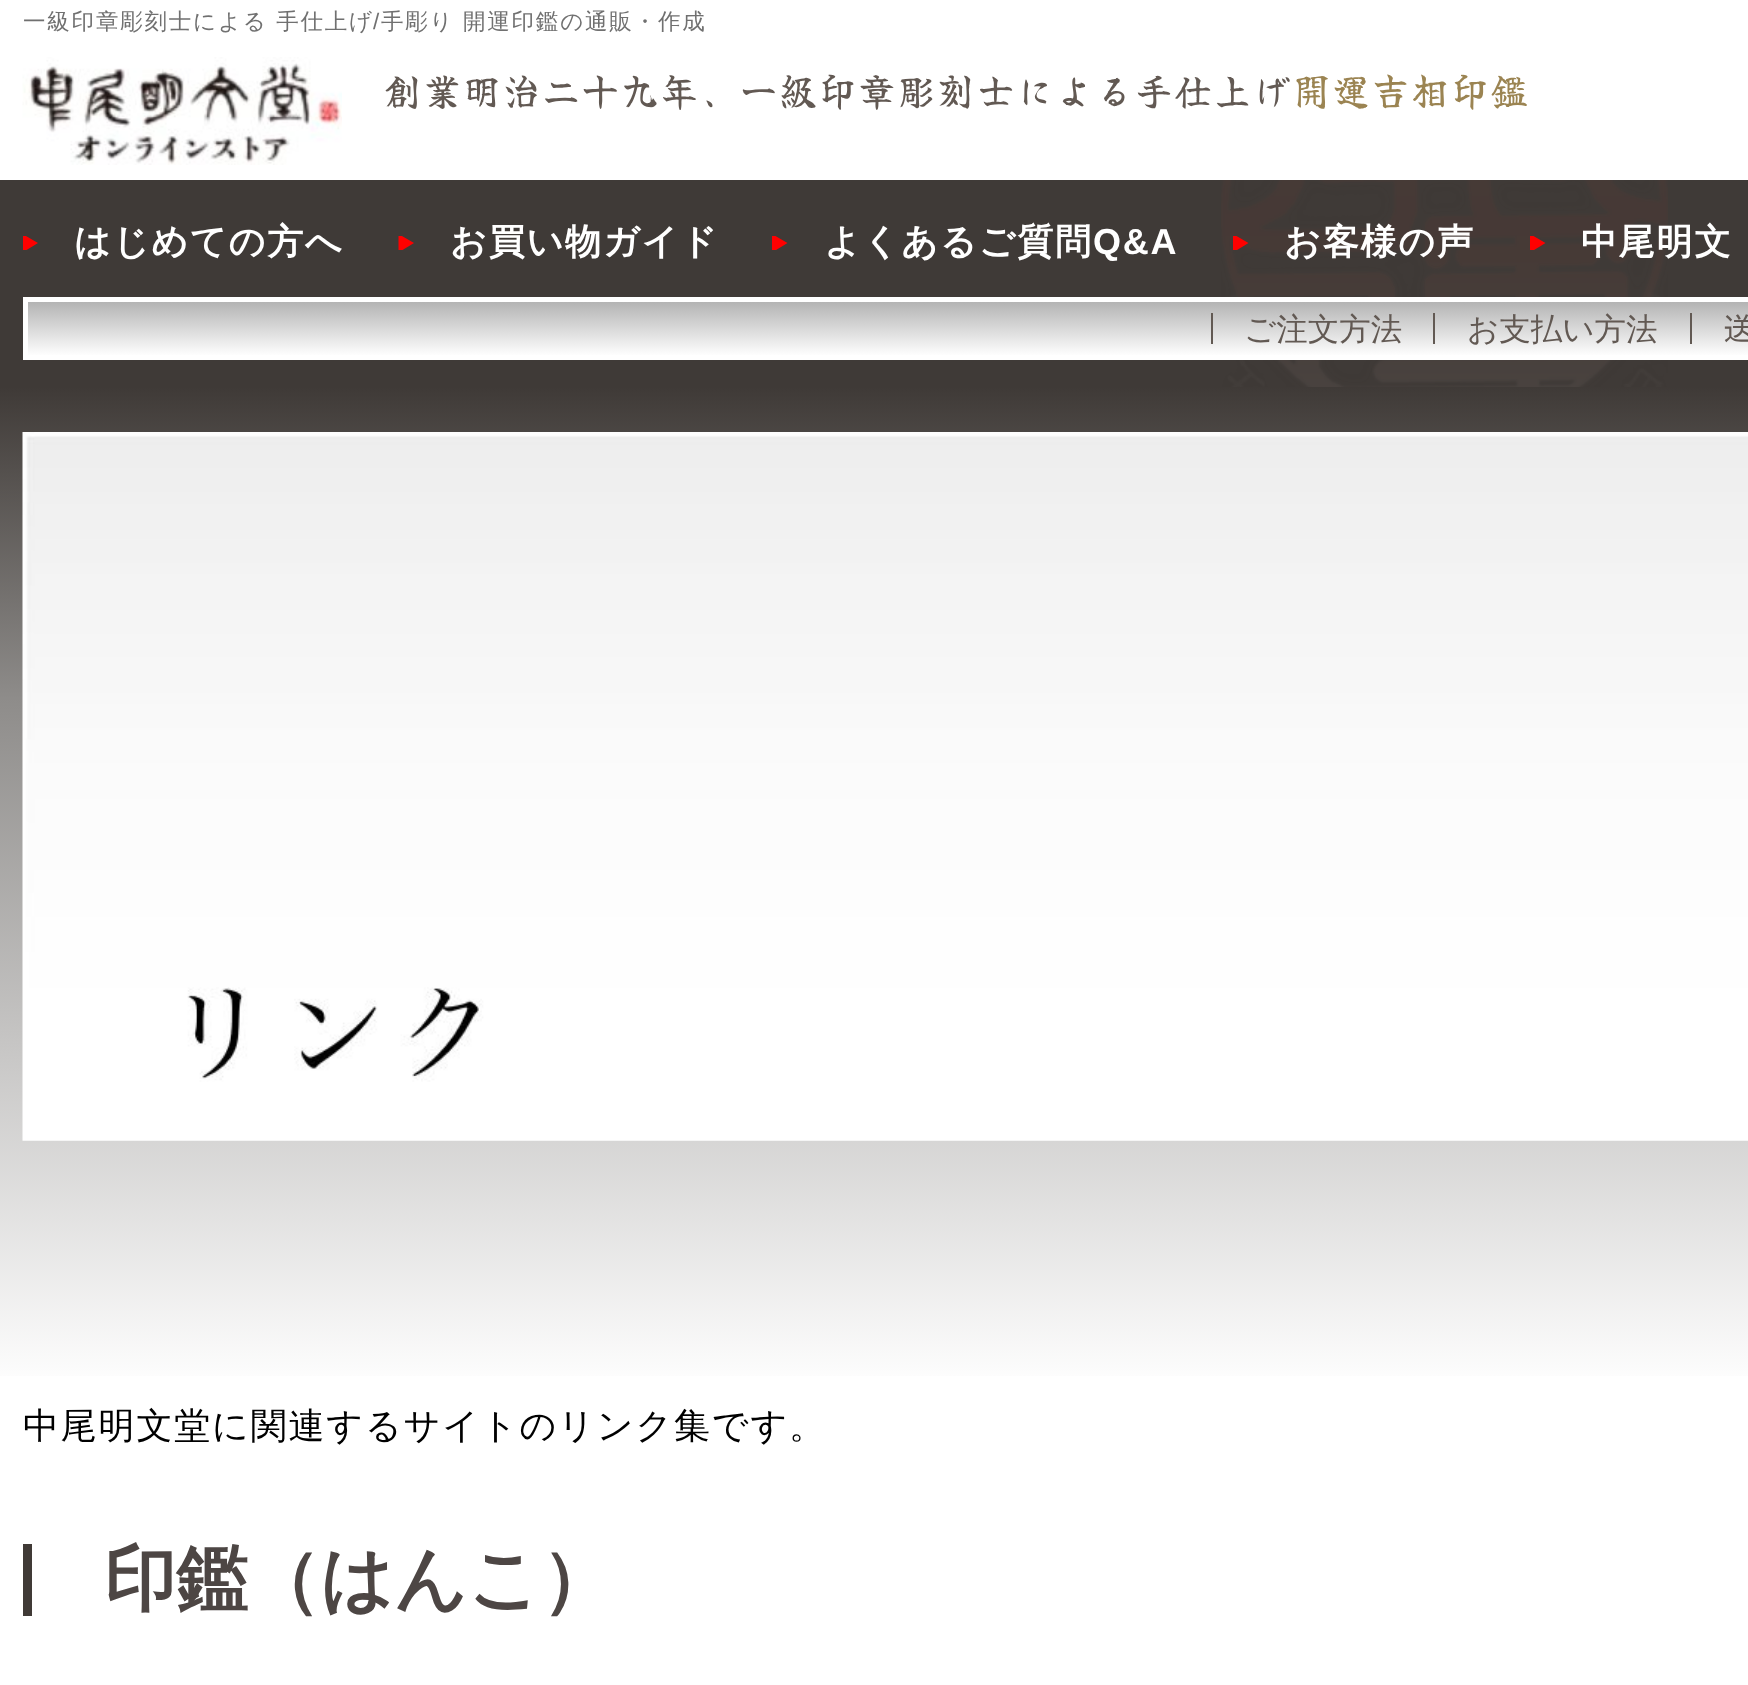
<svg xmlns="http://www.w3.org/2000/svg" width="1748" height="1685">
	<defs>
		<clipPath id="clip1"><rect x="23" y="236" width="15" height="14" /></clipPath>
		<clipPath id="clip2"><rect x="398" y="236" width="16" height="14" /></clipPath>
		<clipPath id="clip3"><rect x="772" y="236" width="16" height="14" /></clipPath>
		<clipPath id="clip4"><rect x="1233" y="236" width="16" height="14" /></clipPath>
		<clipPath id="clip5"><rect x="1530" y="236" width="16" height="14" /></clipPath>
		<linearGradient id="g1" gradientUnits="userSpaceOnUse" x1="1440" y1="301" x2="1440" y2="356"><stop offset="0" stop-color="#B2B2B2" /><stop offset="1" stop-color="#FFFFFF" /></linearGradient>
		<linearGradient id="g2" gradientUnits="userSpaceOnUse" x1="1440" y1="387" x2="1440" y2="1391"><stop offset="0" stop-color="#3F3A37" /><stop offset="0.31" stop-color="#8E8C8A" /><stop offset="1" stop-color="#FFFFFF" /></linearGradient>
	</defs>
	<rect width="100%" height="100%" fill="#FFFFFF" />
	<text x="23" y="29" font-family="WenQuanYi Zen Hei" font-size="22.5" font-weight="500" letter-spacing="1.8" fill="#707070">一級印章彫刻士による 手仕上げ</text>
	<text x="373" y="29" font-family="Liberation Sans" font-size="22.5" letter-spacing="1.8" fill="#707070">/</text>
	<text x="381" y="29" font-family="WenQuanYi Zen Hei" font-size="22.5" font-weight="500" letter-spacing="1.8" fill="#707070">手彫り 開運印鑑の通販・作成</text>
	<image x="22" y="57" width="320" height="108" href="assets/img1.png" />
	<image x="385" y="74" width="1142" height="36" href="assets/img2.png" />
	<rect x="0" y="180" width="1748" height="207" fill="#3F3A37" />
	<image x="1221" y="180" width="447" height="207" href="assets/img3.png" />
	<g clip-path="url(#clip1)">
		<path d="M38 243L22.5 252.5V234Z" fill="#FF0000" />
	</g>
	<text x="74" y="254" font-family="WenQuanYi Zen Hei" font-size="36" font-weight="700" letter-spacing="1.8" fill="#FFFFFF">はじめての方へ</text>
	<g clip-path="url(#clip2)">
		<path d="M414 243L398.5 252.5V234Z" fill="#FF0000" />
	</g>
	<text x="450" y="254" font-family="WenQuanYi Zen Hei" font-size="36" font-weight="700" letter-spacing="1.8" fill="#FFFFFF">お買い物ガイド</text>
	<g clip-path="url(#clip3)">
		<path d="M787.5 243L772 252.5V234Z" fill="#FF0000" />
	</g>
	<text x="824" y="254" font-family="WenQuanYi Zen Hei" font-size="36" font-weight="700" letter-spacing="1.8" fill="#FFFFFF">よくあるご質問</text>
	<text x="1093" y="254" font-family="Liberation Sans" font-size="36" font-weight="700" letter-spacing="1.8" fill="#FFFFFF">Q&amp;A</text>
	<g clip-path="url(#clip4)">
		<path d="M1248.5 243L1233 252.5V234Z" fill="#FF0000" />
	</g>
	<text x="1284" y="254" font-family="WenQuanYi Zen Hei" font-size="36" font-weight="700" letter-spacing="1.8" fill="#FFFFFF">お客様の声</text>
	<g clip-path="url(#clip5)">
		<path d="M1545.5 243L1530 252.5V234Z" fill="#FF0000" />
	</g>
	<text x="1581" y="254" font-family="WenQuanYi Zen Hei" font-size="36" font-weight="700" letter-spacing="1.8" fill="#FFFFFF">中尾明文</text>
	<rect x="28" y="302" width="1720" height="53" fill="url(#g1)" />
	<rect x="25.5" y="299.5" width="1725" height="58" fill="none" stroke="#FFFFFF" stroke-width="5" />
	<rect x="1211" y="313" width="2" height="31" fill="#625953" />
	<text x="1244" y="340" font-family="WenQuanYi Zen Hei" font-size="31.5" font-weight="500" fill="#625953">ご注文方法</text>
	<rect x="1433" y="313" width="2" height="31" fill="#625953" />
	<text x="1467" y="340" font-family="WenQuanYi Zen Hei" font-size="31.5" font-weight="500" fill="#625953">お支払い方法</text>
	<rect x="1690" y="313" width="2" height="31" fill="#625953" />
	<text x="1723" y="340" font-family="IPAPGothic" font-size="31.5" fill="#625953">送</text>
	<rect x="0" y="387" width="1748" height="989" fill="url(#g2)" />
	<image x="22" y="432" width="1726" height="709" href="assets/img4.png" />
	<text x="23" y="1438" font-family="WenQuanYi Zen Hei" font-size="36" font-weight="500" letter-spacing="1.8" fill="#000000">中尾明文堂に関連するサイトのリンク集です。</text>
	<rect x="23" y="1544" width="9" height="72" fill="#403A36" />
	<text x="104" y="1604" font-family="WenQuanYi Zen Hei" font-size="72" font-weight="700" fill="#4D4644">印鑑（はんこ）</text>
</svg>
